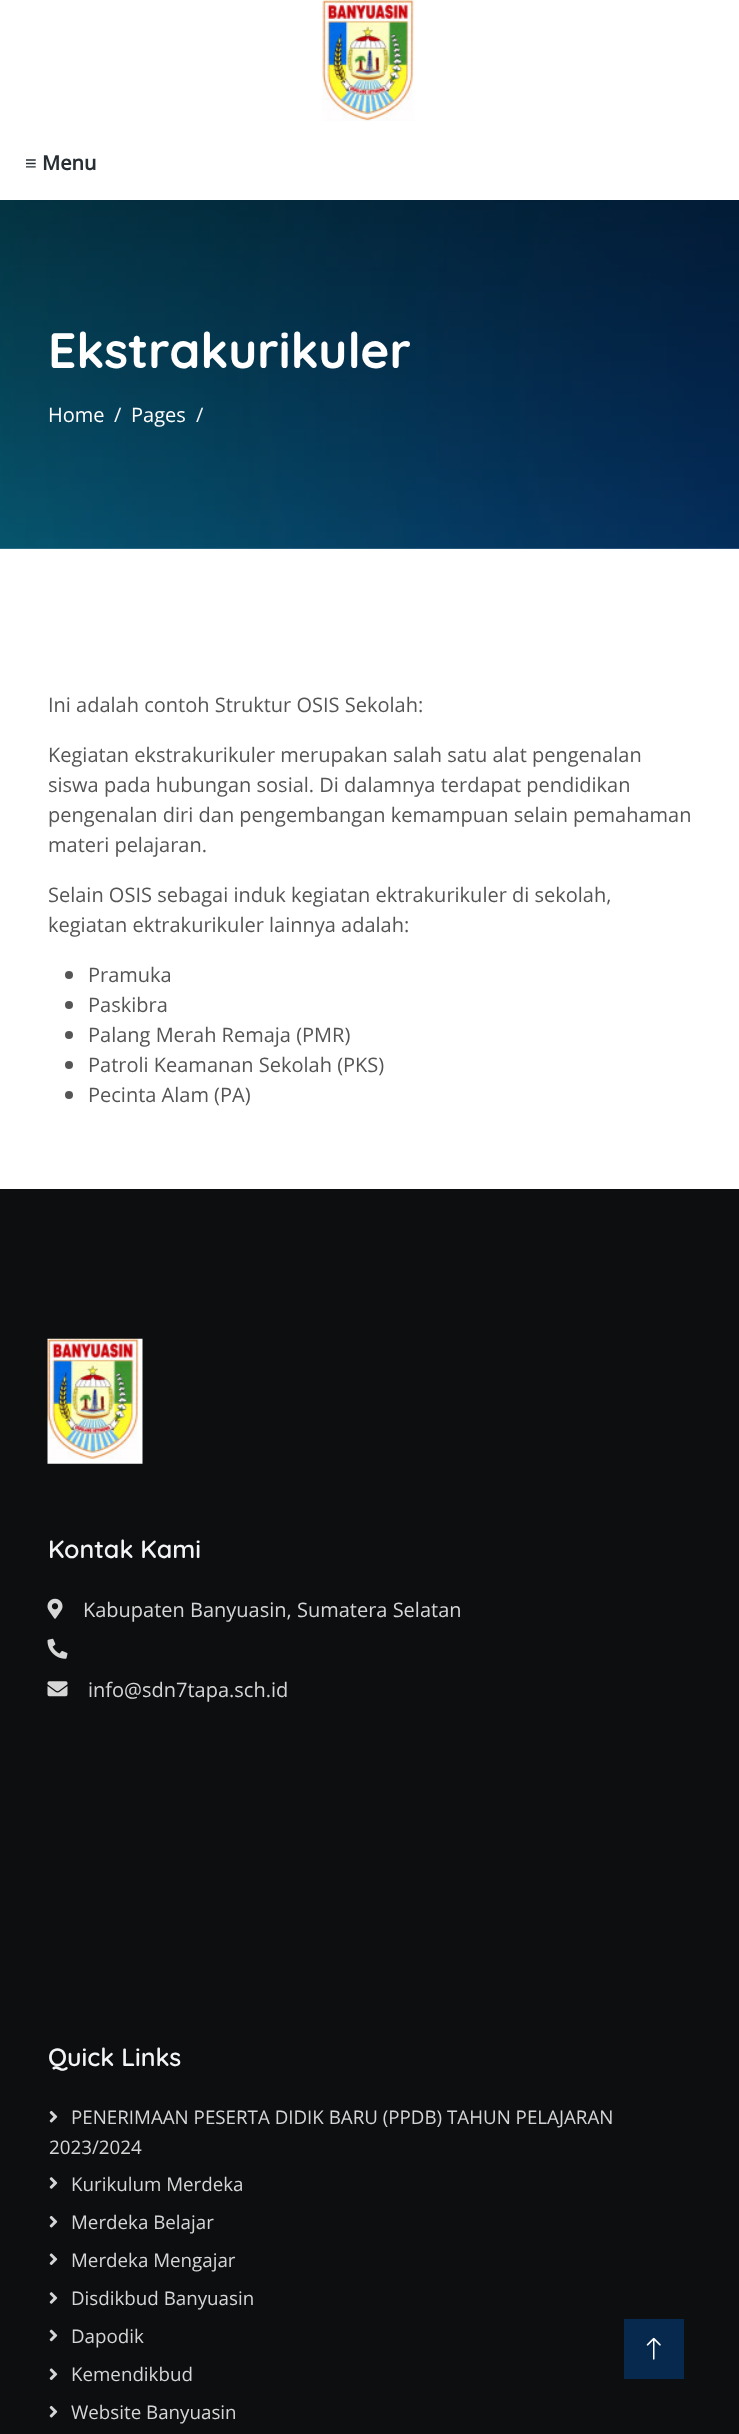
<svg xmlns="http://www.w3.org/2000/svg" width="739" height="2434">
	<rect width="100%" height="100%" fill="#FFFFFF" />
	<image x="322" y="0" width="93" height="121" href="assets/img1.png" />
	<text x="25" y="170" font-family="Liberation Sans" font-size="20" font-weight="700" fill="#282F34">≡</text>
	<text x="42" y="170" font-family="Open Sans" font-size="20" font-weight="700" fill="#282F34">Menu</text>
	<image x="0" y="200" width="739" height="349" href="assets/img2.png" />
	<text x="48" y="368" font-family="Quicksand" font-size="49.5" font-weight="700" fill="#FFFFFF">Ekstrakurikuler</text>
	<text x="48" y="422" font-family="Open Sans" font-size="20" fill="#FFFFFF">Home</text>
	<text x="114" y="422" font-family="Open Sans" font-size="20" fill="#F3F4F5">/</text>
	<text x="131" y="422" font-family="Open Sans" font-size="20" fill="#FFFFFF">Pages</text>
	<text x="196" y="422" font-family="Open Sans" font-size="20" fill="#F3F4F5">/</text>
	<g font-family="Open Sans" font-size="20" fill="#555555">
		<text x="48" y="712">Ini adalah contoh Struktur OSIS Sekolah:</text>
		<text x="48" y="762">Kegiatan ekstrakurikuler merupakan salah satu alat pengenalan</text>
		<text x="48" y="792">siswa pada hubungan sosial. Di dalamnya terdapat pendidikan</text>
		<text x="48" y="822">pengenalan diri dan pengembangan kemampuan selain pemahaman</text>
		<text x="48" y="852">materi pelajaran.</text>
		<text x="48" y="902">Selain OSIS sebagai induk kegiatan ektrakurikuler di sekolah,</text>
		<text x="48" y="932">kegiatan ektrakurikuler lainnya adalah:</text>
	</g>
	<circle cx="69" cy="975" r="4" fill="#555555" />
	<text x="88" y="982" font-family="Open Sans" font-size="20" fill="#555555">Pramuka</text>
	<circle cx="69" cy="1005" r="4" fill="#555555" />
	<text x="88" y="1012" font-family="Open Sans" font-size="20" fill="#555555">Paskibra</text>
	<circle cx="69" cy="1035" r="4" fill="#555555" />
	<text x="88" y="1042" font-family="Open Sans" font-size="20" fill="#555555">Palang Merah Remaja (PMR)</text>
	<circle cx="69" cy="1065" r="4" fill="#555555" />
	<text x="88" y="1072" font-family="Open Sans" font-size="20" fill="#555555">Patroli Keamanan Sekolah (PKS)</text>
	<circle cx="69" cy="1095" r="4" fill="#555555" />
	<text x="88" y="1102" font-family="Open Sans" font-size="20" fill="#555555">Pecinta Alam (PA)</text>
	<rect x="0" y="1189" width="739" height="1245" fill="#0C0E10" />
	<image x="47" y="1338" width="96" height="126" href="assets/img3.png" />
	<text x="48" y="1558" font-family="Quicksand" font-size="25" font-weight="600" fill="#F3F4F5">Kontak Kami</text>
	<image x="47" y="1598" width="16" height="21" href="assets/img4.png" />
	<text x="83" y="1617" font-family="Open Sans" font-size="20" fill="#D6D6D6">Kabupaten Banyuasin, Sumatera Selatan</text>
	<image x="47" y="1638" width="21" height="21" href="assets/img5.png" />
	<image x="47" y="1681" width="21" height="16" href="assets/img6.png" />
	<text x="88" y="1697" font-family="Open Sans" font-size="20" fill="#D6D6D6">info@sdn7tapa.sch.id</text>
	<text x="48" y="2066" font-family="Quicksand" font-size="25" font-weight="600" fill="#F3F4F5">Quick Links</text>
	<image x="49" y="2110" width="9" height="13" href="assets/img7.png" />
	<g font-family="Open Sans" font-size="18.75" fill="#D6D6D6">
		<text x="71" y="2124">PENERIMAAN PESERTA DIDIK BARU (PPDB) TAHUN PELAJARAN</text>
		<text x="49" y="2154">2023/2024</text>
	</g>
	<image x="49" y="2177" width="9" height="12" href="assets/img8.png" />
	<text x="71" y="2191" font-family="Open Sans" font-size="18.75" fill="#D6D6D6">Kurikulum Merdeka</text>
	<image x="49" y="2215" width="9" height="13" href="assets/img7.png" />
	<text x="71" y="2229" font-family="Open Sans" font-size="18.75" fill="#D6D6D6">Merdeka Belajar</text>
	<image x="49" y="2253" width="9" height="12" href="assets/img9.png" />
	<text x="71" y="2267" font-family="Open Sans" font-size="18.75" fill="#D6D6D6">Merdeka Mengajar</text>
	<image x="49" y="2292" width="9" height="12" href="assets/img8.png" />
	<text x="71" y="2305" font-family="Open Sans" font-size="18.75" fill="#D6D6D6">Disdikbud Banyuasin</text>
	<image x="49" y="2329" width="9" height="13" href="assets/img10.png" />
	<text x="71" y="2343" font-family="Open Sans" font-size="18.75" fill="#D6D6D6">Dapodik</text>
	<image x="49" y="2368" width="9" height="12" href="assets/img9.png" />
	<text x="71" y="2381" font-family="Open Sans" font-size="18.75" fill="#D6D6D6">Kemendikbud</text>
	<image x="49" y="2405" width="9" height="13" href="assets/img7.png" />
	<text x="71" y="2419" font-family="Open Sans" font-size="18.75" fill="#D6D6D6">Website Banyuasin</text>
	<rect x="624" y="2319" width="60" height="60" fill="#07294D" />
	<image x="646" y="2337" width="15" height="23" href="assets/img11.png" />
</svg>
